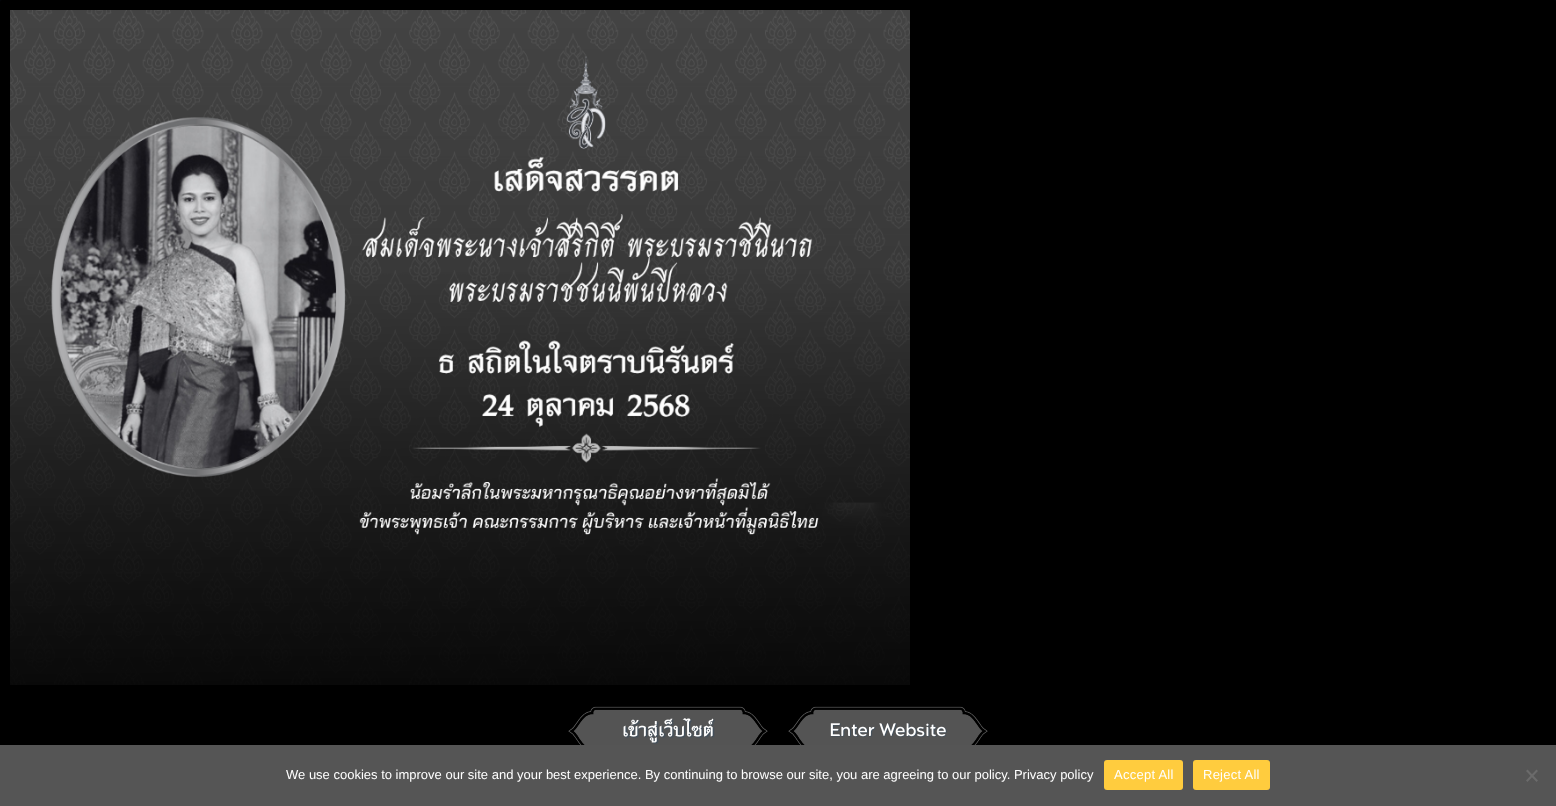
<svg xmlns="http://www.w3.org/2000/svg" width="1556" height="806">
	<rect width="100%" height="100%" fill="#030508" />
	<rect x="0" y="0" width="1556" height="806" rx="3" fill="#000000" />
	<image x="10" y="10" width="900" height="675" href="assets/img1.png" />
	<image x="568" y="706" width="200" height="39" href="assets/img2.png" />
	<image x="788" y="706" width="200" height="39" href="assets/img3.png" />
	<rect x="0" y="745" width="1556" height="61" fill="#555555" />
	<text x="286" y="779" font-family="Liberation Sans" font-size="13" fill="#FFFFFF">We use cookies to improve our site and your best experience. By continuing to browse our site, you are agreeing to our policy. Privacy policy</text>
	<rect x="1104" y="760" width="79" height="30" rx="3" fill="#FFCC3E" />
	<text x="1114" y="779" font-family="Liberation Sans" font-size="13" letter-spacing="0.25" fill="#FFFFFF">Accept All</text>
	<rect x="1193" y="760" width="77" height="30" rx="3" fill="#FFCC3E" />
	<text x="1203" y="779" font-family="Liberation Sans" font-size="13" letter-spacing="0.25" fill="#FFFFFF">Reject All</text>
	<path d="M1536.5 769.5L1538 771L1527.5 782L1526 780.5Z" fill="#6B6B6B" />
	<path d="M1526 771L1527.5 769.5L1538 780.5L1536.5 782Z" fill="#6B6B6B" />
</svg>
